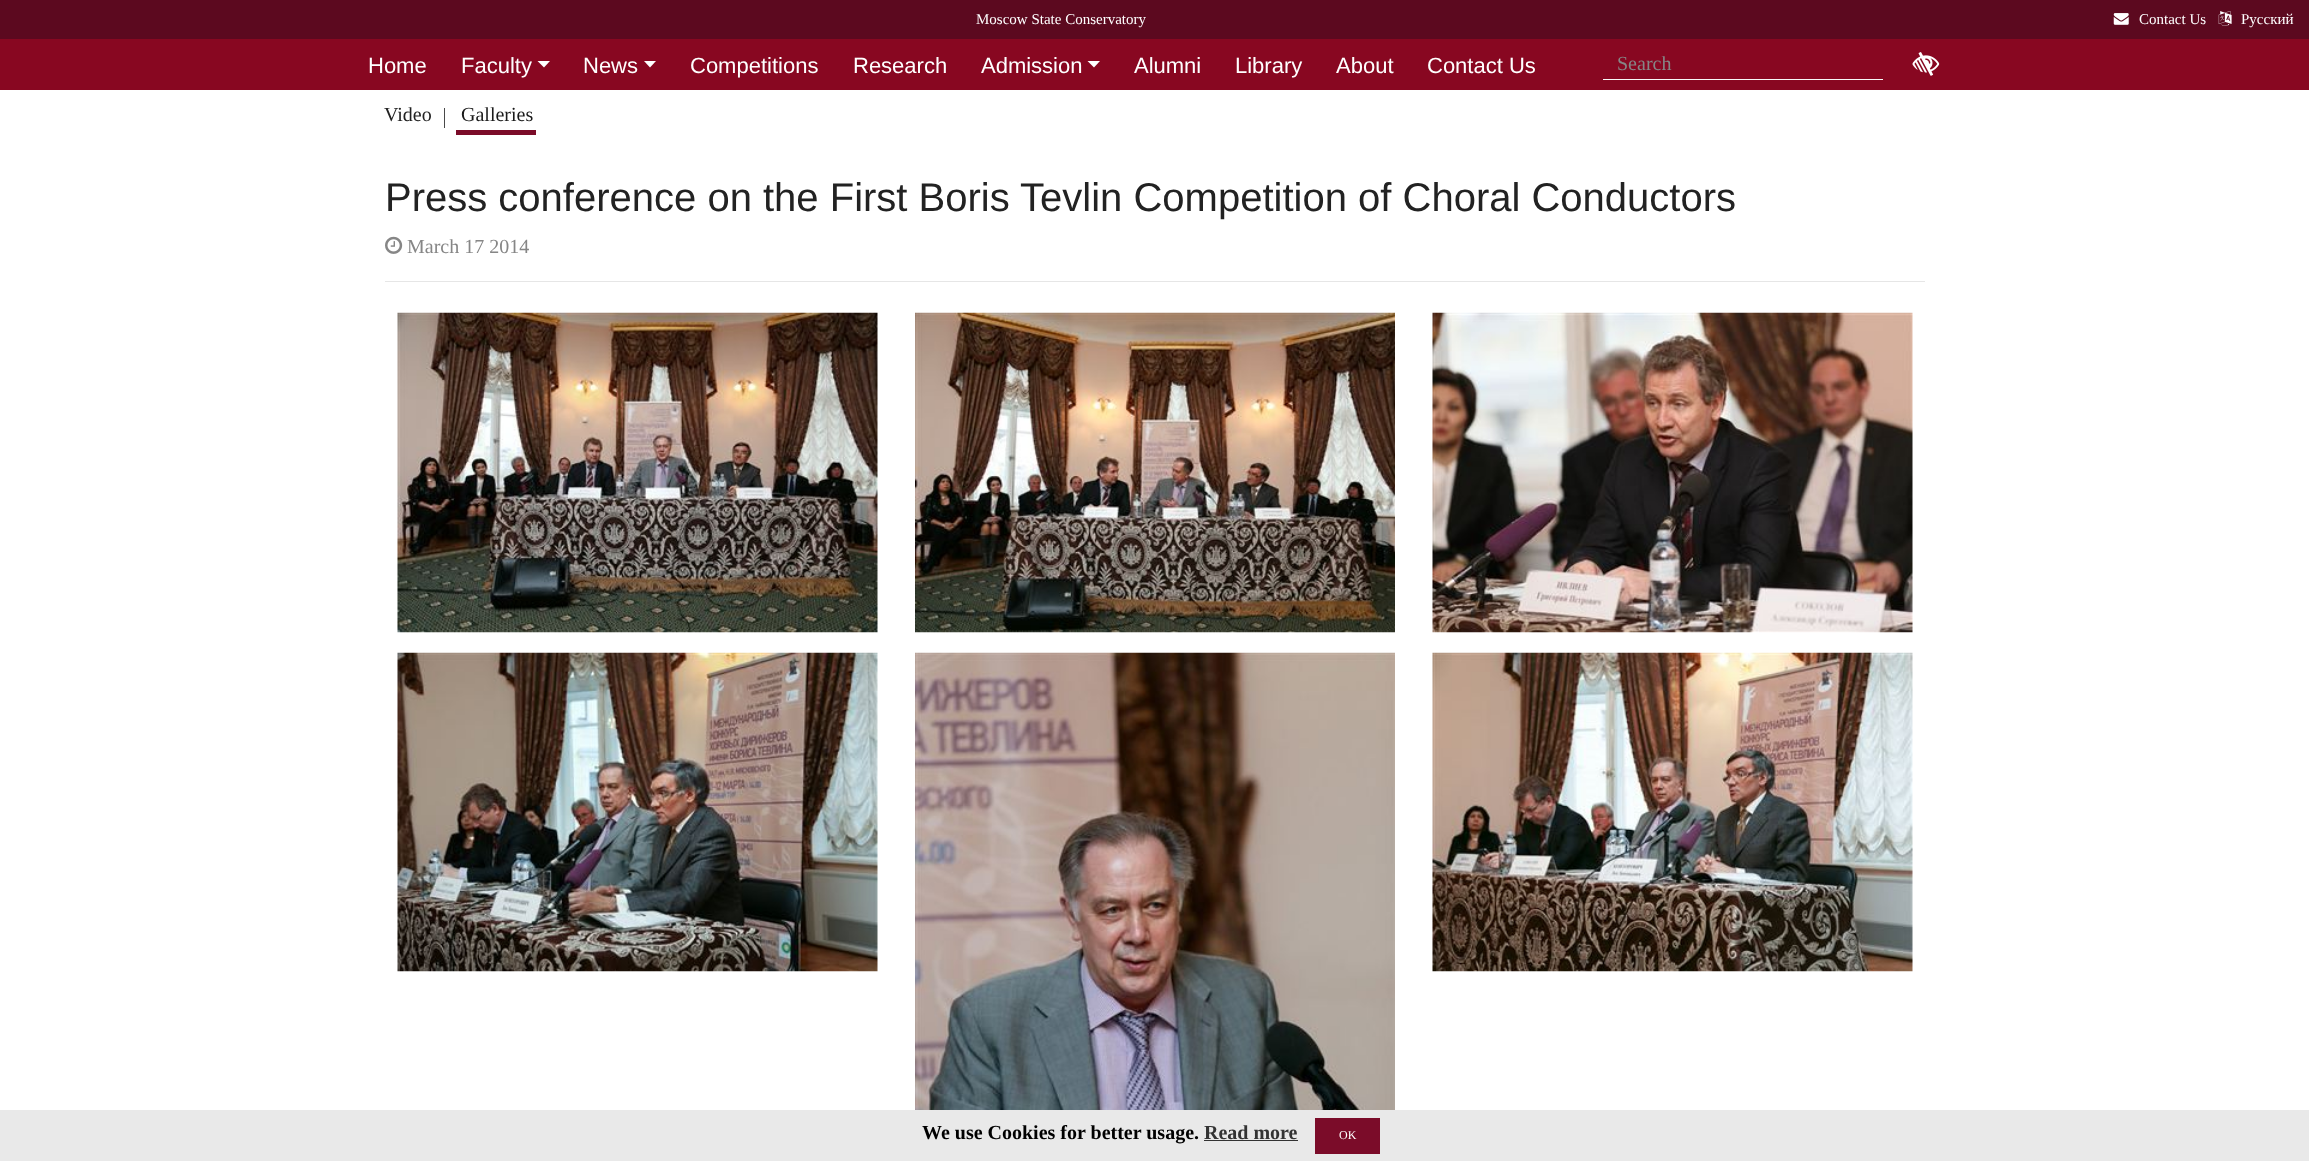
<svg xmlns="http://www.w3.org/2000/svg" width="2309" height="1161">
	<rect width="100%" height="100%" fill="#FFFFFF" />
	<rect x="0" y="0" width="2309" height="39" fill="#5C091F" />
	<text x="976" y="24" font-family="Liberation Serif" font-size="15" fill="#FFFFFF">Moscow State Conservatory</text>
	<image x="2113" y="13" width="16" height="12" href="assets/img1.png" />
	<text x="2139" y="24" font-family="Liberation Serif" font-size="15" fill="#FFFFFF">Contact Us</text>
	<image x="2218" y="11" width="14" height="15" href="assets/img2.png" />
	<text x="2241" y="24" font-family="Liberation Serif" font-size="15" fill="#FFFFFF">Русский</text>
	<rect x="0" y="39" width="2309" height="51" fill="#880721" />
	<g font-family="Liberation Sans" font-size="22" fill="#FFFFFF">
		<text x="368" y="73">Home</text>
		<text x="461" y="73">Faculty</text>
	</g>
	<path d="M537.5 61H550L544 67.5Z" fill="#FFFFFF" />
	<text x="583" y="73" font-family="Liberation Sans" font-size="22" fill="#FFFFFF">News</text>
	<path d="M644 61H656L650 67.5Z" fill="#FFFFFF" />
	<g font-family="Liberation Sans" font-size="22" fill="#FFFFFF">
		<text x="690" y="73">Competitions</text>
		<text x="853" y="73">Research</text>
		<text x="981" y="73">Admission</text>
	</g>
	<path d="M1087.5 61H1100L1094 67.5Z" fill="#FFFFFF" />
	<g font-family="Liberation Sans" font-size="22" fill="#FFFFFF">
		<text x="1134" y="73">Alumni</text>
		<text x="1235" y="73">Library</text>
		<text x="1336" y="73">About</text>
		<text x="1427" y="73">Contact Us</text>
	</g>
	<rect x="1603" y="79" width="280" height="1" fill="#F8F8F8" />
	<text x="1617" y="70" font-family="Liberation Serif" font-size="20" fill="#868686">Search</text>
	<image x="1912" y="52" width="28" height="24" href="assets/img3.png" />
	<text x="384" y="121" font-family="Liberation Serif" font-size="20" fill="#222222">Video</text>
	<rect x="444" y="108" width="1" height="20" fill="#494949" />
	<rect x="456" y="130" width="80" height="5" fill="#7B0C29" />
	<text x="461" y="121" font-family="Liberation Serif" font-size="20" fill="#1A1A1A">Galleries</text>
	<text x="385" y="211" font-family="Liberation Sans" font-size="40" fill="#222222">Press conference on the First Boris Tevlin Competition of Choral Conductors</text>
	<image x="385" y="236" width="18" height="18" href="assets/img4.png" />
	<text x="407" y="253" font-family="Liberation Serif" font-size="20" fill="#868686">March 17 2014</text>
	<rect x="385" y="281" width="1540" height="1" fill="#E6E6E6" />
	<image x="397" y="312" width="481" height="321" href="assets/img5.png" />
	<image x="915" y="312" width="480" height="321" href="assets/img6.png" />
	<image x="1432" y="312" width="481" height="321" href="assets/img7.png" />
	<image x="397" y="652" width="481" height="320" href="assets/img8.png" />
	<image x="915" y="652" width="480" height="458" href="assets/img9.png" />
	<image x="1432" y="652" width="481" height="320" href="assets/img10.png" />
	<rect x="0" y="1110" width="2309" height="51" fill="#E9E9E9" />
	<text x="922" y="1139" font-family="Liberation Serif" font-size="20" font-weight="700" fill="#000000">We use Cookies for better usage.</text>
	<text x="1204" y="1139" font-family="Liberation Serif" font-size="20" font-weight="700" fill="#333333">Read more</text>
	<rect x="1204" y="1140" width="94" height="1" fill="#333333" />
	<rect x="1315" y="1118" width="65" height="36" fill="#7B0C29" />
	<text x="1339" y="1139" font-family="Liberation Serif" font-size="12" fill="#FFFFFF">OK</text>
</svg>
